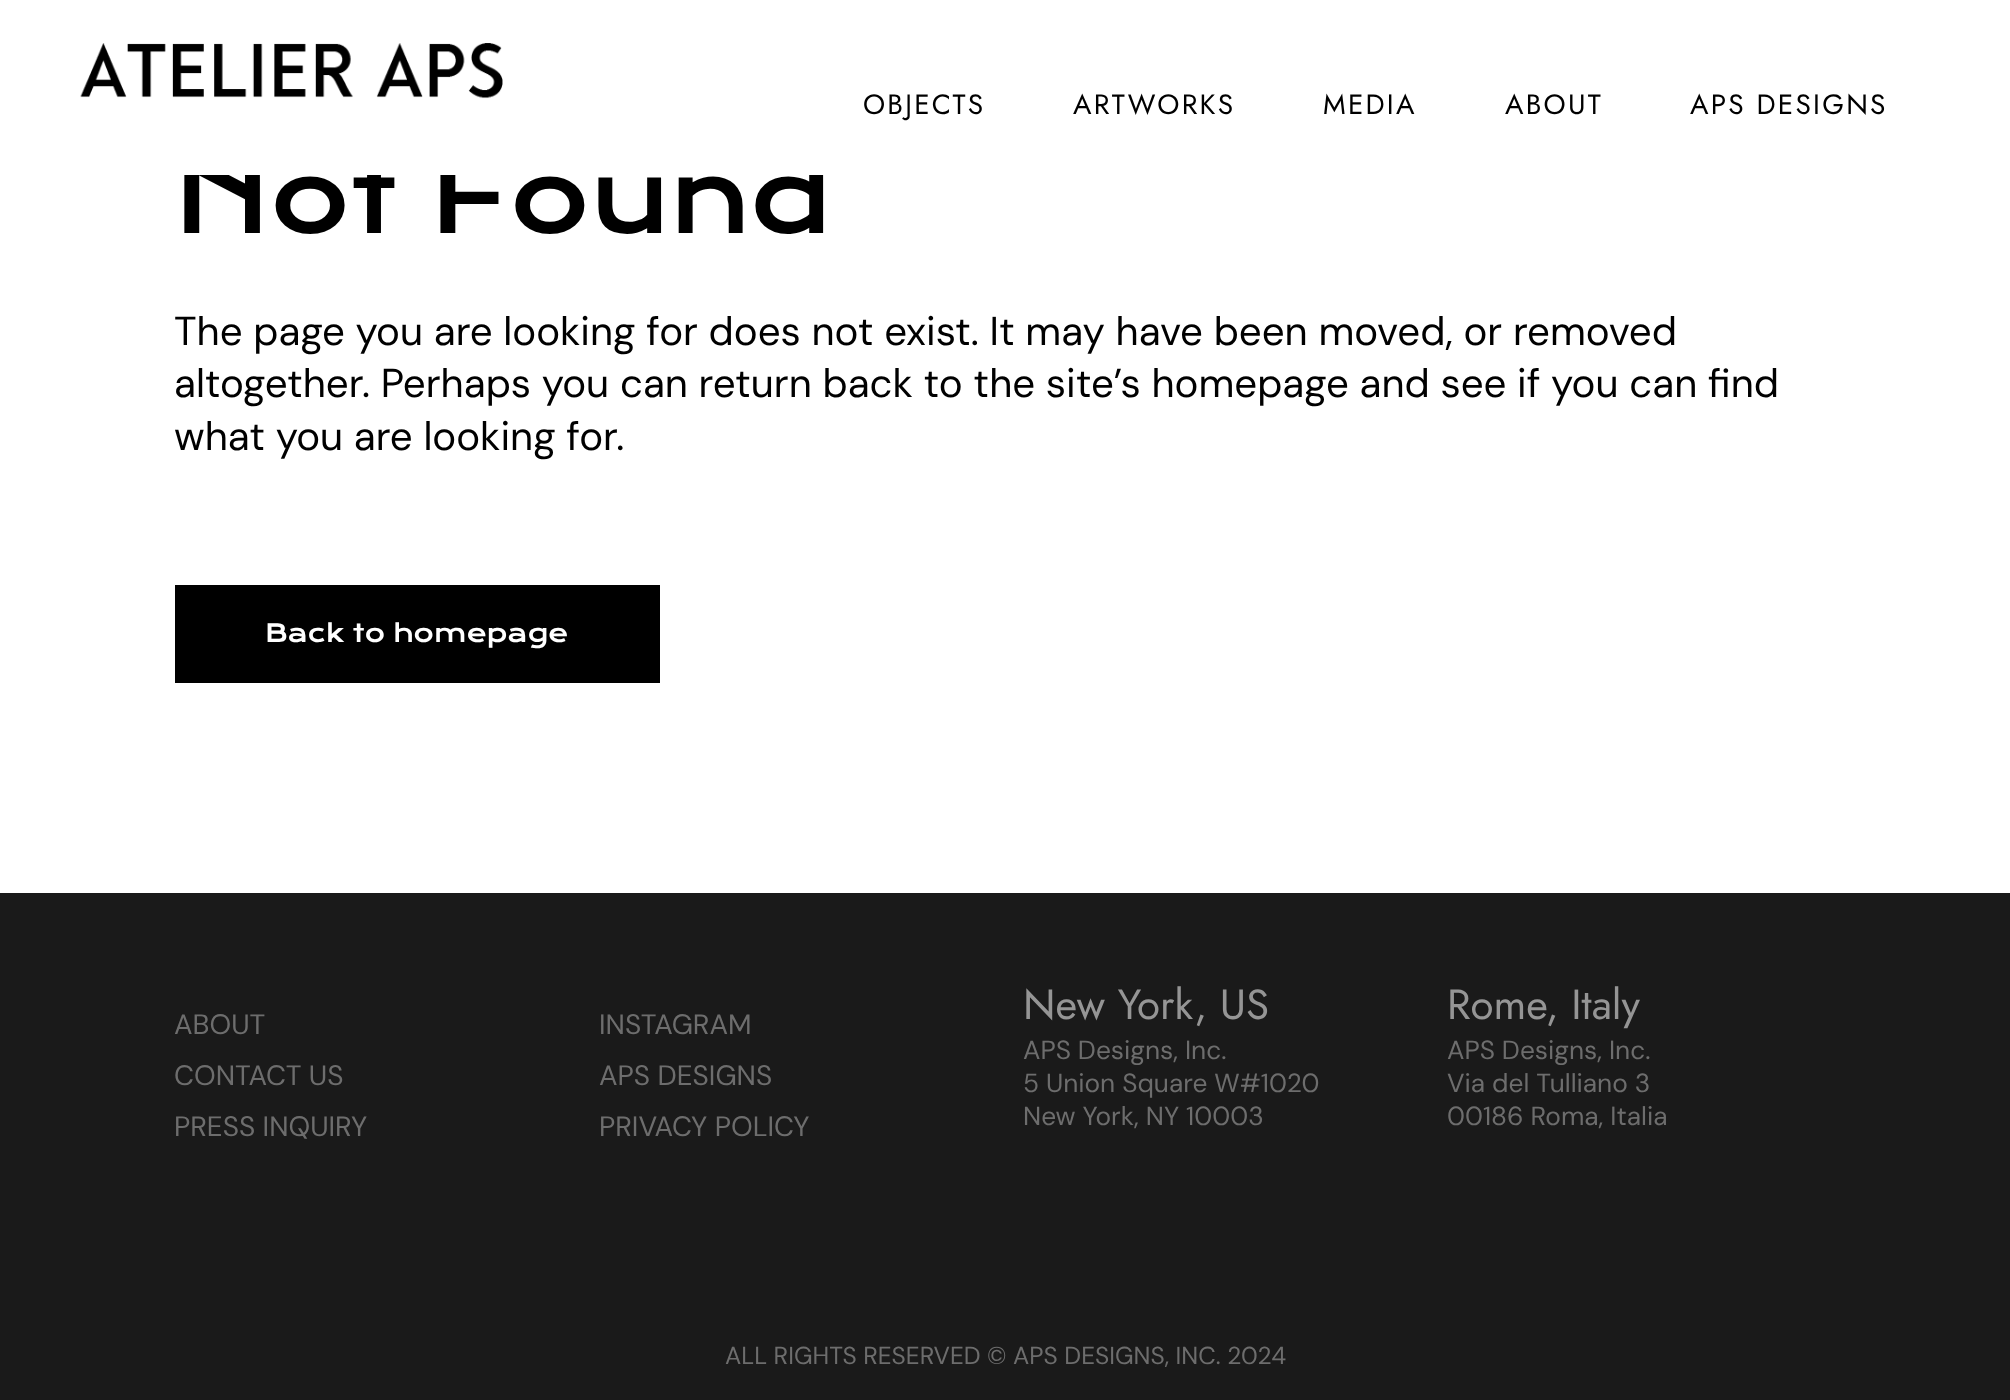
<svg xmlns="http://www.w3.org/2000/svg" width="2010" height="1400">
	<rect width="100%" height="100%" fill="#FFFFFF" />
	<text x="174" y="233" font-family="Krona One" font-size="96.25" fill="#000000">Not Found</text>
	<rect x="184" y="155" width="640" height="20" fill="#FFFFFF" />
	<image x="80" y="43" width="423" height="56" href="assets/img1.png" />
	<g font-family="Jost" font-size="28" letter-spacing="2.25" fill="#000000">
		<text x="863" y="114">OBJECTS</text>
		<text x="1073" y="114">ARTWORKS</text>
		<text x="1323" y="114">MEDIA</text>
		<text x="1505" y="114">ABOUT</text>
		<text x="1690" y="114">APS DESIGNS</text>
	</g>
	<g font-family="DM Sans" font-size="40.25" fill="#000000">
		<text x="174" y="345">The page you are looking for does not exist. It may have been moved, or removed</text>
		<text x="174" y="397">altogether. Perhaps you can return back to the site’s homepage and see if you can find</text>
		<text x="174" y="450">what you are looking for.</text>
	</g>
	<rect x="175" y="585" width="485" height="98" fill="#000000" />
	<text x="265" y="642" font-family="Krona One" font-size="24.5" fill="#FFFFFF">Back to homepage</text>
	<rect x="0" y="893" width="2010" height="507" fill="#1A1A1A" />
	<g font-family="DM Sans" font-size="28" fill="#6D6D6D">
		<text x="174" y="1034">ABOUT</text>
		<text x="174" y="1085">CONTACT US</text>
		<text x="174" y="1136">PRESS INQUIRY</text>
		<text x="599" y="1034">INSTAGRAM</text>
		<text x="599" y="1085">APS DESIGNS</text>
		<text x="599" y="1136">PRIVACY POLICY</text>
	</g>
	<text x="1023" y="1019" font-family="Jost" font-size="42" fill="#959595">New York, US</text>
	<g font-family="DM Sans" font-size="26.25" fill="#6D6D6D">
		<text x="1023" y="1059">APS Designs, Inc.</text>
		<text x="1023" y="1092">5 Union Square W#1020</text>
		<text x="1023" y="1125">New York, NY 10003</text>
	</g>
	<text x="1447" y="1019" font-family="Jost" font-size="42" fill="#959595">Rome, Italy</text>
	<g font-family="DM Sans" font-size="26.25" fill="#6D6D6D">
		<text x="1447" y="1059">APS Designs, Inc.</text>
		<text x="1447" y="1092">Via del Tulliano 3</text>
		<text x="1447" y="1125">00186 Roma, Italia</text>
	</g>
	<text x="725" y="1364" font-family="DM Sans" font-size="24.5" fill="#6D6D6D">ALL RIGHTS RESERVED © APS DESIGNS, INC. 2024</text>
</svg>
